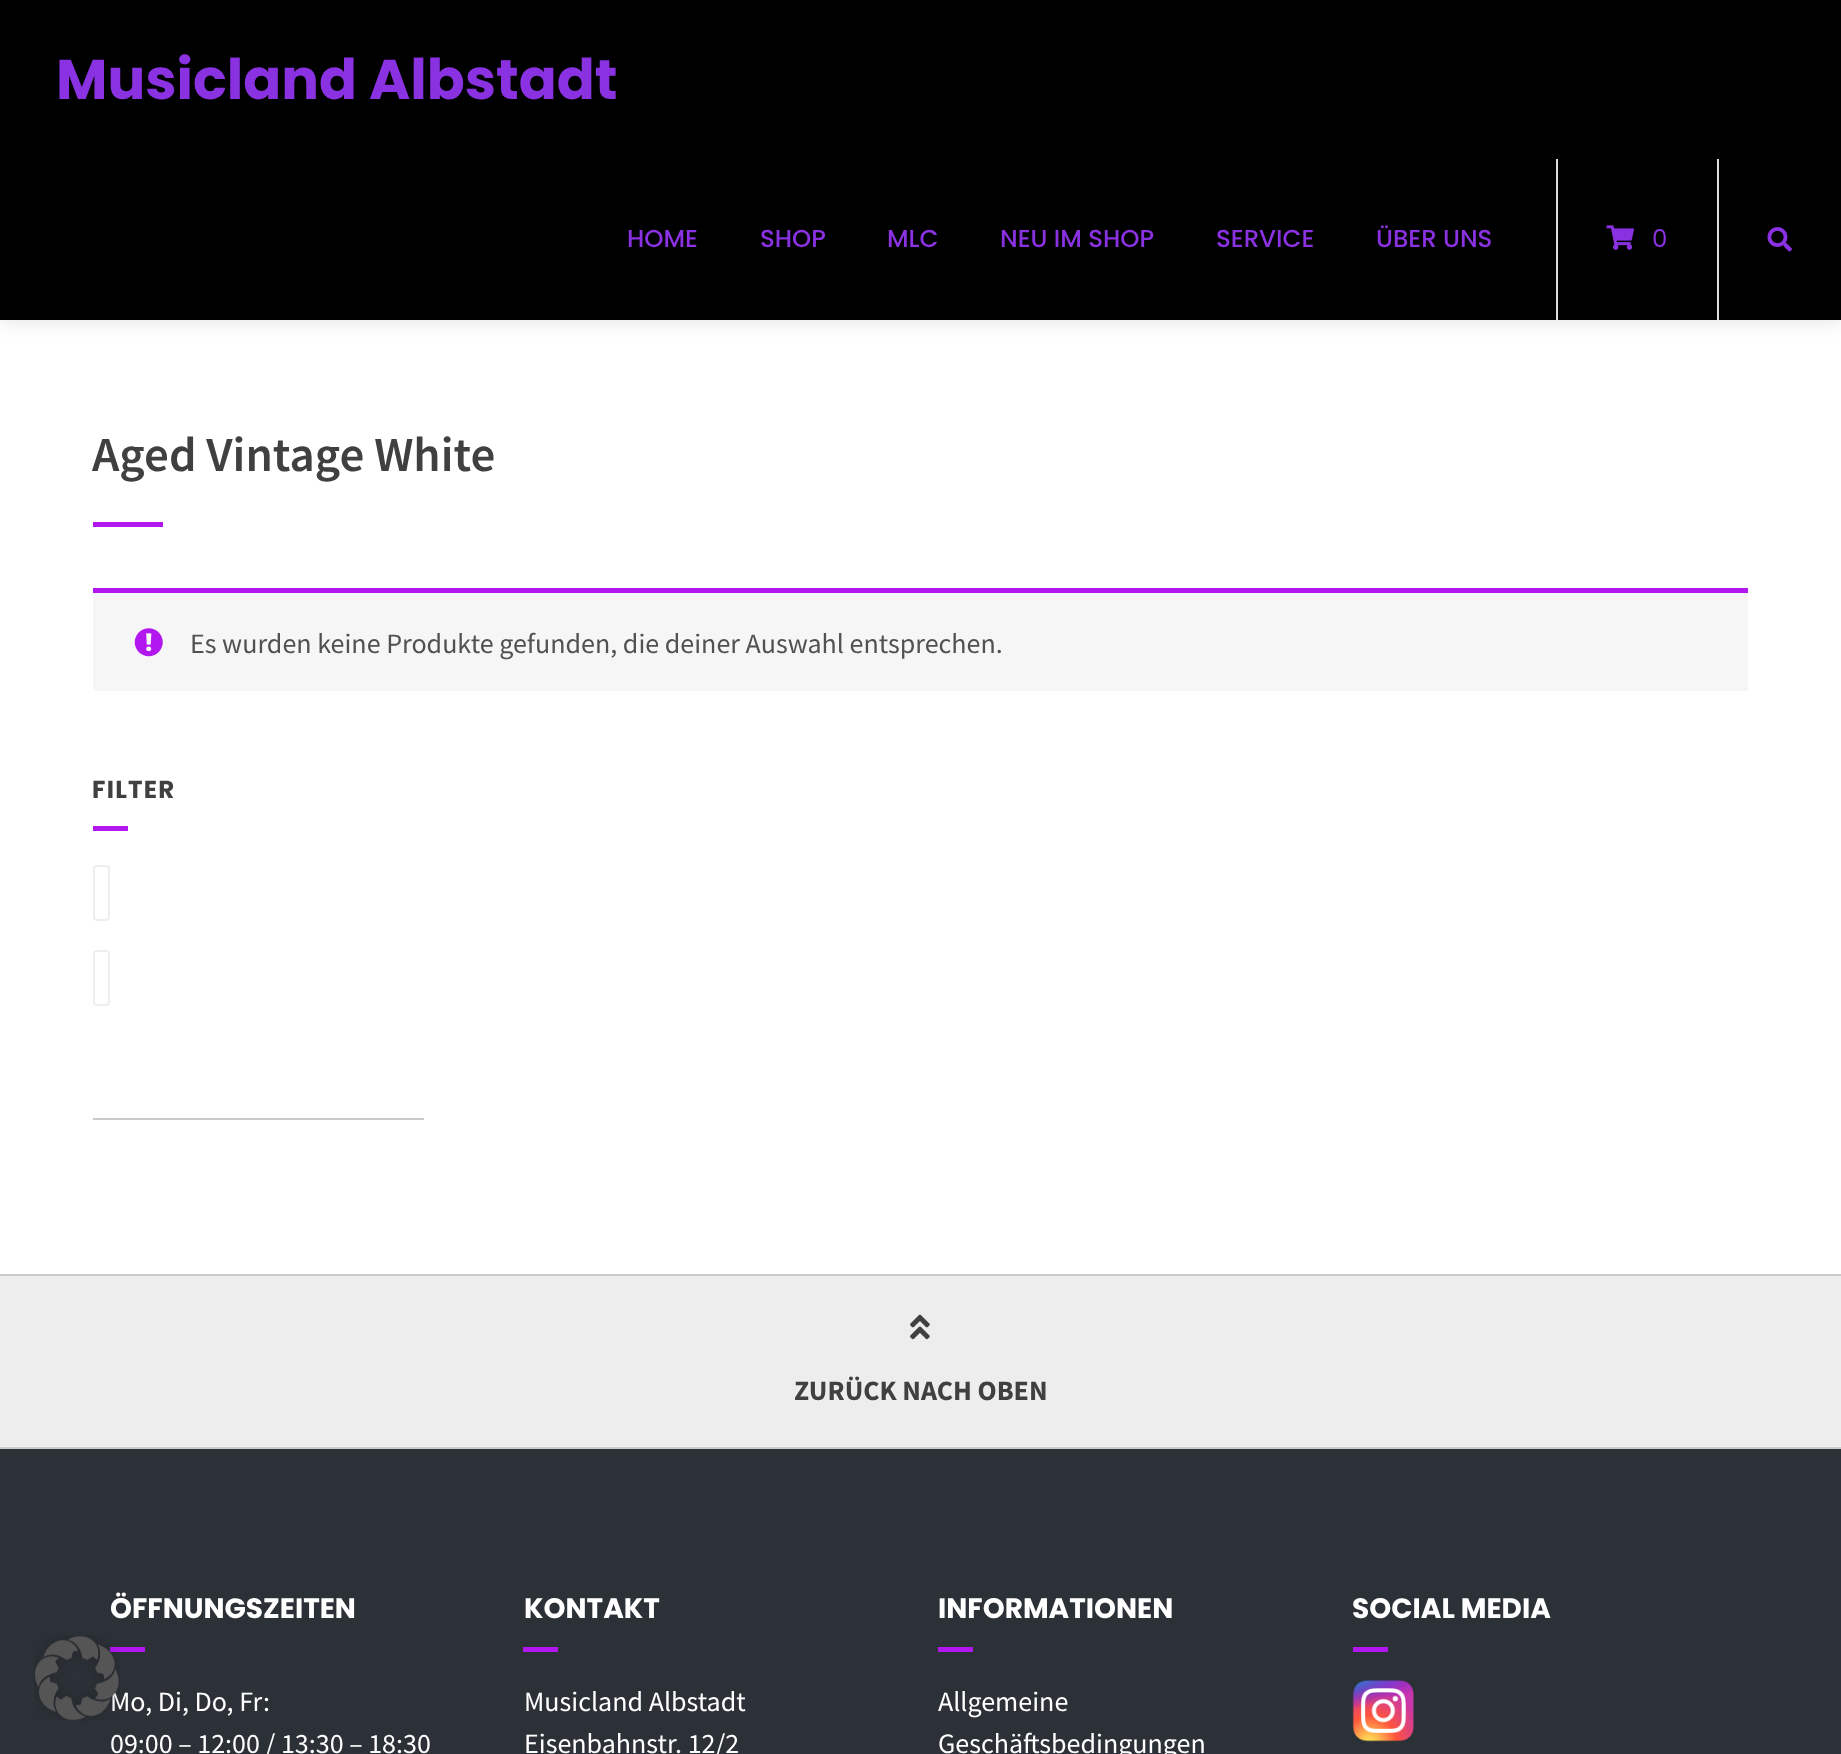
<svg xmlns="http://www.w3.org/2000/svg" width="1841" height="1754">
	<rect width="100%" height="100%" fill="#FFFFFF" />
	<rect x="0" y="2" width="1841" height="320" fill="#000000" fill-opacity="0.1" filter="blur(9px)" />
	<rect x="0" y="0" width="1841" height="320" fill="#000000" />
	<text x="56" y="99" font-family="Poppins" font-size="56" font-weight="700" fill="#8A31E2">Musicland Albstadt</text>
	<g font-family="Poppins" font-size="24.5" font-weight="500" fill="#8A31E2">
		<text x="627" y="247">HOME</text>
		<text x="760" y="247">SHOP</text>
		<text x="887" y="247">MLC</text>
		<text x="1000" y="247">NEU IM SHOP</text>
		<text x="1216" y="247">SERVICE</text>
		<text x="1376" y="247">ÜBER UNS</text>
	</g>
	<rect x="1717" y="159" width="2" height="161" fill="#DDDDDD" />
	<rect x="1556" y="159" width="2" height="161" fill="#DDDDDD" />
	<image x="1606" y="225" width="28" height="25" href="assets/img1.png" />
	<text x="1652" y="247" font-family="Poppins" font-size="24.5" fill="#8A31E2">0</text>
	<image x="1767" y="227" width="25" height="25" href="assets/img2.png" />
	<text x="92" y="471" font-family="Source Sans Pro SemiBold" font-size="49" font-weight="600" fill="#404040">Aged Vintage White</text>
	<rect x="93" y="522" width="70" height="5" fill="#B217EF" />
	<rect x="93" y="593" width="1655" height="98" fill="#F7F6F7" />
	<rect x="93" y="588" width="1655" height="5" fill="#B217EF" />
	<image x="134" y="628" width="29" height="29" href="assets/img3.png" />
	<text x="190" y="653" font-family="Source Sans Pro" font-size="28" fill="#515151">Es wurden keine Produkte gefunden, die deiner Auswahl entsprechen.</text>
	<rect x="93" y="1118" width="331" height="2" fill="#CBCBCB" />
	<text x="92" y="798" font-family="Poppins" font-size="24.5" font-weight="700" letter-spacing="1.25" fill="#404040">FILTER</text>
	<rect x="93" y="826" width="35" height="5" fill="#B217EF" />
	<rect x="94" y="866" width="15" height="54" rx="3" fill="none" stroke="#EEEEEE" stroke-width="2" />
	<rect x="94" y="951" width="15" height="54" rx="3" fill="none" stroke="#EEEEEE" stroke-width="2" />
	<rect x="0" y="1276" width="1841" height="171" fill="#EDEDED" />
	<rect x="0" y="1274" width="1841" height="2" fill="#CBCBCB" />
	<rect x="0" y="1447" width="1841" height="2" fill="#CBCBCB" />
	<image x="910" y="1314" width="20" height="26" href="assets/img4.png" />
	<text x="794" y="1400" font-family="Source Sans Pro" font-size="28" font-weight="700" fill="#404040">ZURÜCK NACH OBEN</text>
	<rect x="0" y="1449" width="1841" height="305" fill="#2C3137" />
	<text x="110" y="1618" font-family="Poppins" font-size="28" font-weight="700" fill="#FFFFFF">ÖFFNUNGSZEITEN</text>
	<rect x="110" y="1647" width="35" height="5" fill="#B217EF" />
	<g font-family="Source Sans Pro" font-size="28" fill="#FFFFFF">
		<text x="110" y="1711">Mo, Di, Do, Fr:</text>
		<text x="110" y="1753">09:00 – 12:00 / 13:30 – 18:30</text>
	</g>
	<text x="524" y="1618" font-family="Poppins" font-size="28" font-weight="700" fill="#FFFFFF">KONTAKT</text>
	<rect x="523" y="1647" width="35" height="5" fill="#B217EF" />
	<g font-family="Source Sans Pro" font-size="28" fill="#FFFFFF">
		<text x="524" y="1711">Musicland Albstadt</text>
		<text x="524" y="1753">Eisenbahnstr. 12/2</text>
	</g>
	<text x="938" y="1618" font-family="Poppins" font-size="28" font-weight="700" fill="#FFFFFF">INFORMATIONEN</text>
	<rect x="938" y="1647" width="35" height="5" fill="#B217EF" />
	<g font-family="Source Sans Pro" font-size="28" fill="#FFFFFF">
		<text x="938" y="1711">Allgemeine</text>
		<text x="938" y="1753">Geschäftsbedingungen</text>
	</g>
	<text x="1352" y="1618" font-family="Poppins" font-size="28" font-weight="700" fill="#FFFFFF">SOCIAL MEDIA</text>
	<rect x="1353" y="1647" width="35" height="5" fill="#B217EF" />
	<image x="1352" y="1680" width="62" height="62" href="assets/img5.png" />
	<image x="34" y="1635" width="86" height="86" href="assets/img6.png" />
</svg>
